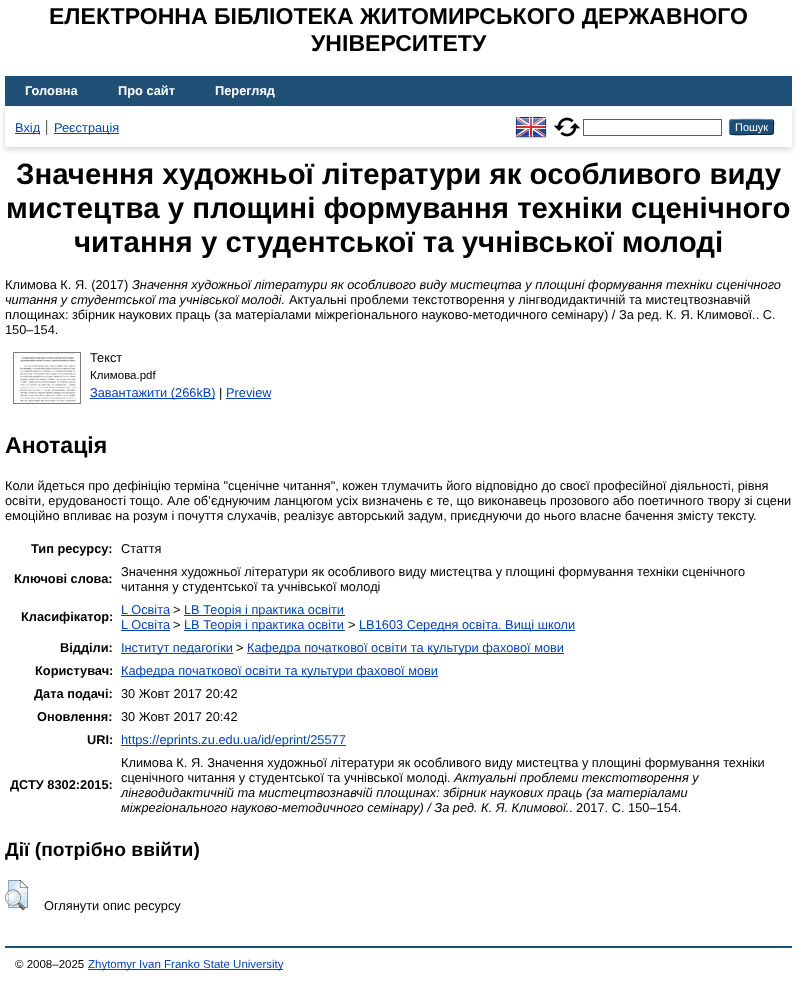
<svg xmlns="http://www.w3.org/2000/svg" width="797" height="992">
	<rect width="100%" height="100%" fill="#FFFFFF" />
	<g font-family="Liberation Sans" font-size="23.05" font-weight="700" fill="#000000">
		<text x="49" y="24">ЕЛЕКТРОННА БІБЛІОТЕКА ЖИТОМИРСЬКОГО ДЕРЖАВНОГО</text>
		<text x="311" y="51">УНІВЕРСИТЕТУ</text>
	</g>
	<rect x="5" y="76" width="787" height="30" fill="#204F76" />
	<g font-family="Liberation Sans" font-size="12.8" font-weight="700" fill="#FFFFFF">
		<text x="25" y="95">Головна</text>
		<text x="118" y="95">Про сайт</text>
		<text x="215" y="95">Перегляд</text>
	</g>
	<rect x="5" y="109" width="787" height="40" fill="#646464" fill-opacity="0.3" filter="blur(3px)" />
	<rect x="5" y="107" width="787" height="40" fill="#FFFFFF" />
	<rect x="46" y="120" width="1" height="15" fill="#606060" />
	<rect x="15" y="133" width="25" height="1" fill="#0645AD" />
	<text x="15" y="132" font-family="Liberation Sans" font-size="12.8" fill="#0645AD">Вхід</text>
	<rect x="47" y="120" width="1" height="15" fill="#E8E8E8" />
	<rect x="54" y="133" width="65" height="1" fill="#0645AD" />
	<text x="54" y="132" font-family="Liberation Sans" font-size="12.8" fill="#0645AD">Реєстрація</text>
	<image x="515" y="117" width="32" height="22" href="assets/img1.png" />
	<image x="553" y="117" width="28" height="20" href="assets/img2.png" />
	<rect x="583.5" y="119.5" width="138" height="16" fill="none" stroke="#606060" />
	<rect x="729" y="119" width="45" height="16" rx="3" fill="#1F4F76" />
	<path d="M730 120C731.5 119 771.5 119 773 120" fill="none" stroke="#5B97C7" />
	<path d="M773 120C774.5 122 773.5 125 773.5 127C773.5 135.5 774 134.5 764.5 134.5H751.5C748.5 134.5 732 135.5 730 134" fill="none" stroke="#0D2131" />
	<path d="M730 134C729 132.5 729.5 128.5 729.5 127C729.5 125.5 729 121.5 730 120" fill="none" stroke="#5287B3" />
	<text x="735" y="131" font-family="Liberation Sans" font-size="11" fill="#FFFFFF">Пошук</text>
	<g font-family="Liberation Sans" font-size="29.45" font-weight="700" fill="#000000">
		<text x="16" y="184">Значення художньої літератури як особливого виду</text>
		<text x="6" y="218">мистецтва у площині формування техніки сценічного</text>
		<text x="74" y="252">читання у студентської та учнівської молоді</text>
	</g>
	<text x="5" y="289" font-family="Liberation Sans" font-size="12.8" fill="#000000">Климова К. Я. (2017)</text>
	<g font-family="Liberation Sans" font-size="12.8" font-style="italic" fill="#000000">
		<text x="132" y="289">Значення художньої літератури як особливого виду мистецтва у площині формування техніки сценічного</text>
		<text x="5" y="304">читання у студентської та учнівської молоді.</text>
	</g>
	<g font-family="Liberation Sans" font-size="12.8" fill="#000000">
		<text x="289" y="304">Актуальні проблеми текстотворення у лінгводидактичній та мистецтвознавчій</text>
		<text x="5" y="319">площинах: збірник наукових праць (за матеріалами міжрегіонального науково-методичного семінару) / За ред. К. Я. Климової.. С.</text>
		<text x="5" y="334">150–154.</text>
	</g>
	<image x="13" y="352" width="68" height="52" href="assets/img3.png" />
	<text x="90" y="362" font-family="Liberation Sans" font-size="12.8" fill="#000000">Текст</text>
	<text x="90" y="379" font-family="Liberation Sans" font-size="11.5" fill="#000000">Климова.pdf</text>
	<rect x="90" y="398" width="125" height="1" fill="#0645AD" />
	<text x="90" y="397" font-family="Liberation Sans" font-size="12.8" fill="#0645AD">Завантажити (266kB)</text>
	<text x="219" y="397" font-family="Liberation Sans" font-size="12.8" fill="#000000">|</text>
	<text x="226" y="397" font-family="Liberation Sans" font-size="12.8" fill="#0645AD">Preview</text>
	<rect x="226" y="398" width="45" height="1" fill="#0645AD" />
	<text x="5" y="453" font-family="Liberation Sans" font-size="23.05" font-weight="700" fill="#000000">Анотація</text>
	<g font-family="Liberation Sans" font-size="12.8" fill="#000000">
		<text x="5" y="490">Коли йдеться про дефініцію терміна "сценічне читання", кожен тлумачить його відповідно до своєї професійної діяльності, рівня</text>
		<text x="5" y="505">освіти, ерудованості тощо. Але об’єднуючим ланцюгом усіх визначень є те, що виконавець прозового або поетичного твору зі сцени</text>
		<text x="5" y="520">емоційно впливає на розум і почуття слухачів, реалізує авторський задум, приєднуючи до нього власне бачення змісту тексту.</text>
	</g>
	<text x="31" y="553" font-family="Liberation Sans" font-size="12.8" font-weight="700" fill="#000000">Тип ресурсу:</text>
	<text x="121" y="553" font-family="Liberation Sans" font-size="12.8" fill="#000000">Стаття</text>
	<text x="14" y="583" font-family="Liberation Sans" font-size="12.8" font-weight="700" fill="#000000">Ключові слова:</text>
	<g font-family="Liberation Sans" font-size="12.8" fill="#000000">
		<text x="121" y="576">Значення художньої літератури як особливого виду мистецтва у площині формування техніки сценічного</text>
		<text x="121" y="591">читання у студентської та учнівської молоді</text>
	</g>
	<text x="21" y="621" font-family="Liberation Sans" font-size="12.8" font-weight="700" fill="#000000">Класифікатор:</text>
	<text x="121" y="614" font-family="Liberation Sans" font-size="12.8" fill="#0645AD">L Освіта</text>
	<rect x="121" y="615" width="49" height="1" fill="#0645AD" />
	<text x="173" y="614" font-family="Liberation Sans" font-size="12.8" fill="#000000">&gt;</text>
	<rect x="184" y="615" width="161" height="1" fill="#0645AD" />
	<g font-family="Liberation Sans" font-size="12.8" fill="#0645AD">
		<text x="184" y="614">LB Теорія і практика освіти</text>
		<text x="121" y="629">L Освіта</text>
	</g>
	<rect x="121" y="630" width="49" height="1" fill="#0645AD" />
	<text x="173" y="629" font-family="Liberation Sans" font-size="12.8" fill="#000000">&gt;</text>
	<rect x="184" y="630" width="161" height="1" fill="#0645AD" />
	<text x="184" y="629" font-family="Liberation Sans" font-size="12.8" fill="#0645AD">LB Теорія і практика освіти</text>
	<text x="348" y="629" font-family="Liberation Sans" font-size="12.8" fill="#000000">&gt;</text>
	<rect x="359" y="630" width="216" height="1" fill="#0645AD" />
	<text x="359" y="629" font-family="Liberation Sans" font-size="12.8" fill="#0645AD">LB1603 Середня освіта. Вищі школи</text>
	<text x="60" y="652" font-family="Liberation Sans" font-size="12.8" font-weight="700" fill="#000000">Відділи:</text>
	<rect x="121" y="653" width="112" height="1" fill="#0645AD" />
	<text x="121" y="652" font-family="Liberation Sans" font-size="12.8" fill="#0645AD">Інститут педагогіки</text>
	<text x="236" y="652" font-family="Liberation Sans" font-size="12.8" fill="#000000">&gt;</text>
	<rect x="247" y="653" width="317" height="1" fill="#0645AD" />
	<text x="247" y="652" font-family="Liberation Sans" font-size="12.8" fill="#0645AD">Кафедра початкової освіти та культури фахової мови</text>
	<text x="35" y="675" font-family="Liberation Sans" font-size="12.8" font-weight="700" fill="#000000">Користувач:</text>
	<rect x="121" y="676" width="317" height="1" fill="#0645AD" />
	<text x="121" y="675" font-family="Liberation Sans" font-size="12.8" fill="#0645AD">Кафедра початкової освіти та культури фахової мови</text>
	<text x="34" y="698" font-family="Liberation Sans" font-size="12.8" font-weight="700" fill="#000000">Дата подачі:</text>
	<text x="121" y="698" font-family="Liberation Sans" font-size="12.8" fill="#000000">30 Жовт 2017 20:42</text>
	<text x="37" y="721" font-family="Liberation Sans" font-size="12.8" font-weight="700" fill="#000000">Оновлення:</text>
	<text x="121" y="721" font-family="Liberation Sans" font-size="12.8" fill="#000000">30 Жовт 2017 20:42</text>
	<text x="87" y="744" font-family="Liberation Sans" font-size="12.8" font-weight="700" fill="#000000">URI:</text>
	<rect x="121" y="745" width="225" height="1" fill="#0645AD" />
	<text x="121" y="744" font-family="Liberation Sans" font-size="12.8" fill="#0645AD">https://eprints.zu.edu.ua/id/eprint/25577</text>
	<text x="10" y="789" font-family="Liberation Sans" font-size="12.8" font-weight="700" fill="#000000">ДСТУ 8302:2015:</text>
	<g font-family="Liberation Sans" font-size="12.8" fill="#000000">
		<text x="121" y="767">Климова К. Я. Значення художньої літератури як особливого виду мистецтва у площині формування техніки</text>
		<text x="121" y="782">сценічного читання у студентської та учнівської молоді.</text>
	</g>
	<g font-family="Liberation Sans" font-size="12.8" font-style="italic" fill="#000000">
		<text x="454" y="782">Актуальні проблеми текстотворення у</text>
		<text x="121" y="797">лінгводидактичній та мистецтвознавчій площинах: збірник наукових праць (за матеріалами</text>
		<text x="121" y="812">міжрегіонального науково-методичного семінару) / За ред. К. Я. Климової.</text>
	</g>
	<text x="569" y="812" font-family="Liberation Sans" font-size="12.8" fill="#000000">. 2017. С. 150–154.</text>
	<text x="5" y="856" font-family="Liberation Sans" font-size="19.25" font-weight="700" fill="#000000">Дії (потрібно ввійти)</text>
	<image x="5" y="880" width="23" height="30" href="assets/img4.png" />
	<text x="44" y="910" font-family="Liberation Sans" font-size="12.8" fill="#000000">Оглянути опис ресурсу</text>
	<rect x="5" y="946" width="787" height="2" fill="#204F76" />
	<text x="15" y="968" font-family="Liberation Sans" font-size="11.5" fill="#000000">© 2008–2025</text>
	<rect x="88" y="969" width="195" height="1" fill="#0645AD" />
	<text x="88" y="968" font-family="Liberation Sans" font-size="11.5" fill="#0645AD">Zhytomyr Ivan Franko State University</text>
</svg>
